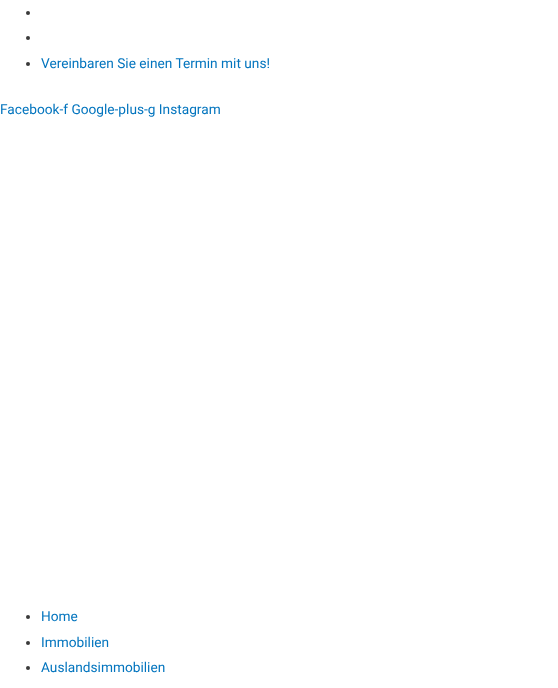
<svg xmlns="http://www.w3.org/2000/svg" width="558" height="688">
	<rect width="100%" height="100%" fill="#FFFFFF" />
	<circle cx="28" cy="13" r="2" fill="#3A3A3A" />
	<circle cx="28" cy="38" r="2" fill="#3A3A3A" />
	<circle cx="28" cy="64" r="2" fill="#3A3A3A" />
	<g font-family="Roboto" font-size="13.7" fill="#0274BE">
		<text x="41" y="68">Vereinbaren Sie einen Termin mit uns!</text>
		<text x="0" y="114">Facebook-f Google-plus-g Instagram</text>
	</g>
	<circle cx="28" cy="617" r="2" fill="#3A3A3A" />
	<text x="41" y="621" font-family="Roboto" font-size="13.7" fill="#0274BE">Home</text>
	<circle cx="28" cy="643" r="2" fill="#3A3A3A" />
	<text x="41" y="647" font-family="Roboto" font-size="13.7" fill="#0274BE">Immobilien</text>
	<circle cx="28" cy="668" r="2" fill="#3A3A3A" />
	<text x="41" y="672" font-family="Roboto" font-size="13.7" fill="#0274BE">Auslandsimmobilien</text>
</svg>
